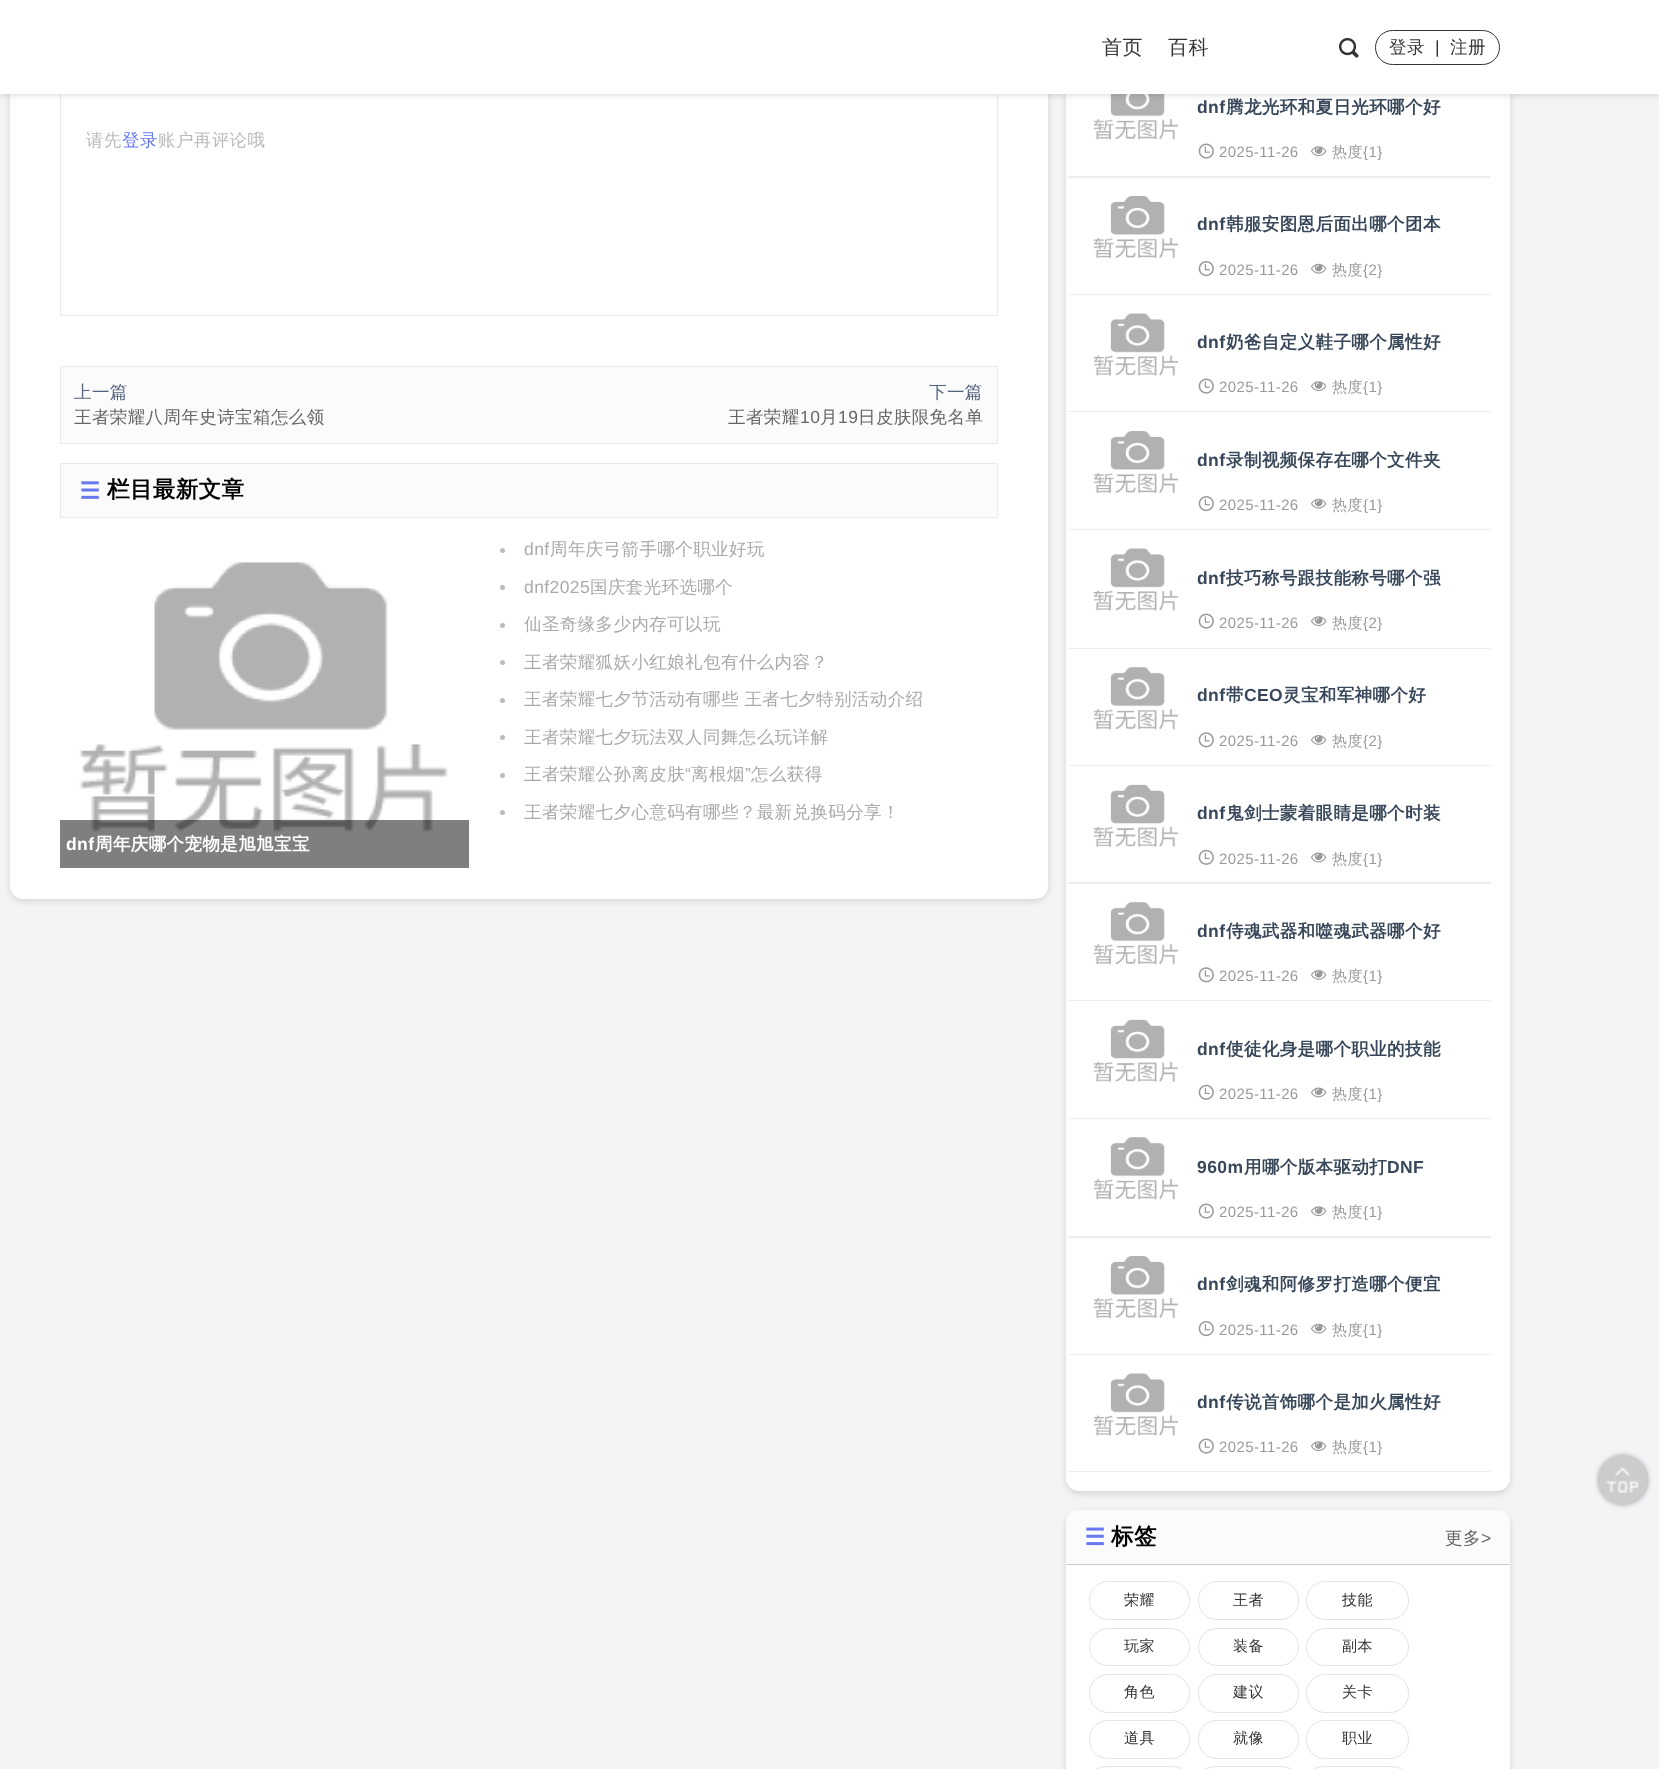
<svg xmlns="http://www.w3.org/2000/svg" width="1659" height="1769">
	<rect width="100%" height="100%" fill="#F4F4F6" />
	<rect x="10" y="-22" width="1038" height="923" rx="13" fill="#BBBBBB" fill-opacity="0.56" filter="blur(3px)" />
	<rect x="10" y="-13" width="1038" height="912" rx="13" fill="#FFFFFF" />
	<rect x="60.5" y="89.5" width="937" height="226" fill="none" stroke="#EAEAEA" />
	<rect x="1066" y="-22" width="444" height="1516" rx="13" fill="#BBBBBB" fill-opacity="0.56" filter="blur(3px)" />
	<rect x="1066" y="-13" width="444" height="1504" rx="13" fill="#FFFFFF" />
	<path d="M1491 178H1066L1069 176H1491Z" fill="#EEEEEE" />
	<path d="M1066 178V59H1069V176Z" fill="#FFFFFF" />
	<image x="1093" y="94" width="86" height="46" href="assets/img4.png" />
	<rect x="0" y="1" width="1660" height="94" fill="#000000" fill-opacity="0.15" filter="blur(3px)" />
	<rect x="0" y="0" width="1659" height="94" fill="#FFFFFF" />
	<g font-family="WenQuanYi Zen Hei" font-size="20" font-weight="500" letter-spacing="0.4" fill="#333333">
		<text x="1102" y="54">首页</text>
		<text x="1168" y="54">百科</text>
	</g>
	<image x="1339" y="37" width="20" height="21" href="assets/img1.png" />
	<rect x="1375.5" y="30.5" width="124" height="34" rx="17" fill="none" stroke="#333333" />
	<text x="1389" y="53" font-family="WenQuanYi Zen Hei" font-size="17.5" font-weight="500" letter-spacing="0.4" fill="#333333">登录</text>
	<text x="1435" y="53" font-family="Liberation Sans" font-size="17.5" letter-spacing="0.4" fill="#333333">|</text>
	<text x="1450" y="53" font-family="WenQuanYi Zen Hei" font-size="17.5" font-weight="500" letter-spacing="0.4" fill="#333333">注册</text>
	<text x="86" y="146" font-family="WenQuanYi Zen Hei" font-size="17.5" font-weight="500" letter-spacing="0.4" fill="#BBBBBB">请先</text>
	<text x="122" y="146" font-family="WenQuanYi Zen Hei" font-size="17.5" font-weight="500" letter-spacing="0.4" fill="#6679EF">登录</text>
	<text x="158" y="146" font-family="WenQuanYi Zen Hei" font-size="17.5" font-weight="500" letter-spacing="0.4" fill="#BBBBBB">账户再评论哦</text>
	<rect x="60.5" y="366.5" width="937" height="77" fill="#FBFBFB" stroke="#EAEAEA" />
	<text x="74" y="398" font-family="WenQuanYi Zen Hei" font-size="17.5" font-weight="500" letter-spacing="0.4" fill="#55647E">上一篇</text>
	<text x="74" y="423" font-family="WenQuanYi Zen Hei" font-size="17.5" font-weight="500" letter-spacing="0.4" fill="#666666">王者荣耀八周年史诗宝箱怎么领</text>
	<text x="929" y="398" font-family="WenQuanYi Zen Hei" font-size="17.5" font-weight="500" letter-spacing="0.4" fill="#55647E">下一篇</text>
	<text x="728" y="423" font-family="WenQuanYi Zen Hei" font-size="17.5" font-weight="500" letter-spacing="0.4" fill="#666666">王者荣耀</text>
	<text x="800" y="423" font-family="Liberation Sans" font-size="17.5" letter-spacing="0.4" fill="#666666">10</text>
	<text x="820" y="423" font-family="WenQuanYi Zen Hei" font-size="17.5" font-weight="500" letter-spacing="0.4" fill="#666666">月</text>
	<text x="838" y="423" font-family="Liberation Sans" font-size="17.5" letter-spacing="0.4" fill="#666666">19</text>
	<text x="858" y="423" font-family="WenQuanYi Zen Hei" font-size="17.5" font-weight="500" letter-spacing="0.4" fill="#666666">日皮肤限免名单</text>
	<rect x="60.5" y="463.5" width="937" height="54" fill="#FBFBFB" stroke="#EAEAEA" />
	<image x="81" y="481" width="18" height="18" href="assets/img2.png" />
	<text x="107" y="497" font-family="WenQuanYi Zen Hei" font-size="22.5" font-weight="700" letter-spacing="0.4" fill="#000000">栏目最新文章</text>
	<circle cx="502.5" cy="550.5" r="2.5" fill="#BBBBBB" />
	<text x="524" y="555" font-family="Liberation Sans" font-size="17.5" letter-spacing="0.4" fill="#AAAAAA">dnf</text>
	<text x="550" y="555" font-family="WenQuanYi Zen Hei" font-size="17.5" font-weight="500" letter-spacing="0.4" fill="#AAAAAA">周年庆弓箭手哪个职业好玩</text>
	<circle cx="502.5" cy="587.5" r="2.5" fill="#BBBBBB" />
	<text x="524" y="593" font-family="Liberation Sans" font-size="17.5" letter-spacing="0.4" fill="#AAAAAA">dnf2025</text>
	<text x="590" y="593" font-family="WenQuanYi Zen Hei" font-size="17.5" font-weight="500" letter-spacing="0.4" fill="#AAAAAA">国庆套光环选哪个</text>
	<circle cx="502.5" cy="625.5" r="2.5" fill="#BBBBBB" />
	<text x="524" y="630" font-family="WenQuanYi Zen Hei" font-size="17.5" font-weight="500" letter-spacing="0.4" fill="#AAAAAA">仙圣奇缘多少内存可以玩</text>
	<circle cx="502.5" cy="662.5" r="2.5" fill="#BBBBBB" />
	<text x="524" y="668" font-family="WenQuanYi Zen Hei" font-size="17.5" font-weight="500" letter-spacing="0.4" fill="#AAAAAA">王者荣耀狐妖小红娘礼包有什么内容？</text>
	<circle cx="502.5" cy="700.5" r="2.5" fill="#BBBBBB" />
	<text x="524" y="705" font-family="WenQuanYi Zen Hei" font-size="17.5" font-weight="500" letter-spacing="0.4" fill="#AAAAAA">王者荣耀七夕节活动有哪些 王者七夕特别活动介绍</text>
	<circle cx="502.5" cy="737.5" r="2.5" fill="#BBBBBB" />
	<g font-family="WenQuanYi Zen Hei" font-size="17.5" font-weight="500" letter-spacing="0.4" fill="#AAAAAA">
		<text x="524" y="743">王者荣耀七夕玩法双人同舞怎么玩详解</text>
		<text x="524" y="780">王者荣耀公孙离皮肤</text>
	</g>
	<text x="685" y="780" font-family="Liberation Sans" font-size="17.5" letter-spacing="0.4" fill="#AAAAAA">“</text>
	<text x="691" y="780" font-family="WenQuanYi Zen Hei" font-size="17.5" font-weight="500" letter-spacing="0.4" fill="#AAAAAA">离根烟</text>
	<text x="745" y="780" font-family="Liberation Sans" font-size="17.5" letter-spacing="0.4" fill="#AAAAAA">”</text>
	<text x="751" y="780" font-family="WenQuanYi Zen Hei" font-size="17.5" font-weight="500" letter-spacing="0.4" fill="#AAAAAA">怎么获得</text>
	<circle cx="502.5" cy="775.5" r="2.5" fill="#BBBBBB" />
	<circle cx="502.5" cy="812.5" r="2.5" fill="#BBBBBB" />
	<text x="524" y="818" font-family="WenQuanYi Zen Hei" font-size="17.5" font-weight="500" letter-spacing="0.4" fill="#AAAAAA">王者荣耀七夕心意码有哪些？最新兑换码分享！</text>
	<image x="79" y="562" width="369" height="271" href="assets/img3.png" />
	<rect x="60" y="820" width="409" height="48" fill="#000000" fill-opacity="0.5" />
	<text x="66" y="850" font-family="Liberation Sans" font-size="17.5" font-weight="700" letter-spacing="0.4" fill="#FFFFFF">dnf</text>
	<text x="95" y="850" font-family="WenQuanYi Zen Hei" font-size="17.5" font-weight="700" letter-spacing="0.4" fill="#FFFFFF">周年庆哪个宠物是旭旭宝宝</text>
	<text x="1197" y="113" font-family="Liberation Sans" font-size="17.5" font-weight="700" letter-spacing="0.4" fill="#38485A">dnf</text>
	<text x="1226" y="113" font-family="WenQuanYi Zen Hei" font-size="17.5" font-weight="700" letter-spacing="0.4" fill="#38485A">腾龙光环和夏日光环哪个好</text>
	<image x="1198" y="143" width="16" height="16" href="assets/img5.png" />
	<text x="1219" y="157" font-family="Liberation Sans" font-size="15" letter-spacing="0.4" fill="#999999">2025-11-26</text>
	<image x="1311" y="146" width="16" height="11" href="assets/img6.png" />
	<text x="1332" y="157" font-family="WenQuanYi Zen Hei" font-size="15" font-weight="500" letter-spacing="0.4" fill="#999999">热度</text>
	<text x="1363" y="157" font-family="Liberation Sans" font-size="15" letter-spacing="0.4" fill="#999999">{1}</text>
	<path d="M1491 295H1066L1069 294H1491Z" fill="#EEEEEE" />
	<path d="M1066 295V178H1069V294Z" fill="#FFFFFF" />
	<image x="1093" y="196" width="86" height="63" href="assets/img7.png" />
	<text x="1197" y="230" font-family="Liberation Sans" font-size="17.5" font-weight="700" letter-spacing="0.4" fill="#38485A">dnf</text>
	<text x="1226" y="230" font-family="WenQuanYi Zen Hei" font-size="17.5" font-weight="700" letter-spacing="0.4" fill="#38485A">韩服安图恩后面出哪个团本</text>
	<image x="1198" y="261" width="16" height="16" href="assets/img8.png" />
	<text x="1219" y="275" font-family="Liberation Sans" font-size="15" letter-spacing="0.4" fill="#999999">2025-11-26</text>
	<image x="1311" y="263" width="16" height="11" href="assets/img9.png" />
	<text x="1332" y="275" font-family="WenQuanYi Zen Hei" font-size="15" font-weight="500" letter-spacing="0.4" fill="#999999">热度</text>
	<text x="1363" y="275" font-family="Liberation Sans" font-size="15" letter-spacing="0.4" fill="#999999">{2}</text>
	<path d="M1491 412H1066L1069 411H1491Z" fill="#EEEEEE" />
	<path d="M1066 412V295H1069V411Z" fill="#FFFFFF" />
	<image x="1093" y="313" width="86" height="63" href="assets/img10.png" />
	<text x="1197" y="348" font-family="Liberation Sans" font-size="17.5" font-weight="700" letter-spacing="0.4" fill="#38485A">dnf</text>
	<text x="1226" y="348" font-family="WenQuanYi Zen Hei" font-size="17.5" font-weight="700" letter-spacing="0.4" fill="#38485A">奶爸自定义鞋子哪个属性好</text>
	<image x="1198" y="378" width="16" height="16" href="assets/img5.png" />
	<text x="1219" y="392" font-family="Liberation Sans" font-size="15" letter-spacing="0.4" fill="#999999">2025-11-26</text>
	<image x="1311" y="381" width="16" height="11" href="assets/img6.png" />
	<text x="1332" y="392" font-family="WenQuanYi Zen Hei" font-size="15" font-weight="500" letter-spacing="0.4" fill="#999999">热度</text>
	<text x="1363" y="392" font-family="Liberation Sans" font-size="15" letter-spacing="0.4" fill="#999999">{1}</text>
	<path d="M1491 530H1066L1069 529H1491Z" fill="#EEEEEE" />
	<path d="M1066 530V412H1069V529Z" fill="#FFFFFF" />
	<image x="1093" y="431" width="86" height="63" href="assets/img7.png" />
	<text x="1197" y="466" font-family="Liberation Sans" font-size="17.5" font-weight="700" letter-spacing="0.4" fill="#38485A">dnf</text>
	<text x="1226" y="466" font-family="WenQuanYi Zen Hei" font-size="17.5" font-weight="700" letter-spacing="0.4" fill="#38485A">录制视频保存在哪个文件夹</text>
	<image x="1198" y="496" width="16" height="16" href="assets/img8.png" />
	<text x="1219" y="510" font-family="Liberation Sans" font-size="15" letter-spacing="0.4" fill="#999999">2025-11-26</text>
	<image x="1311" y="498" width="16" height="11" href="assets/img9.png" />
	<text x="1332" y="510" font-family="WenQuanYi Zen Hei" font-size="15" font-weight="500" letter-spacing="0.4" fill="#999999">热度</text>
	<text x="1363" y="510" font-family="Liberation Sans" font-size="15" letter-spacing="0.4" fill="#999999">{1}</text>
	<path d="M1491 649H1066L1069 648H1491Z" fill="#EEEEEE" />
	<path d="M1066 649V530H1069V648Z" fill="#FFFFFF" />
	<image x="1093" y="548" width="86" height="63" href="assets/img10.png" />
	<text x="1197" y="584" font-family="Liberation Sans" font-size="17.5" font-weight="700" letter-spacing="0.4" fill="#38485A">dnf</text>
	<text x="1226" y="584" font-family="WenQuanYi Zen Hei" font-size="17.5" font-weight="700" letter-spacing="0.4" fill="#38485A">技巧称号跟技能称号哪个强</text>
	<image x="1198" y="613" width="16" height="16" href="assets/img5.png" />
	<text x="1219" y="628" font-family="Liberation Sans" font-size="15" letter-spacing="0.4" fill="#999999">2025-11-26</text>
	<image x="1311" y="616" width="16" height="11" href="assets/img6.png" />
	<text x="1332" y="628" font-family="WenQuanYi Zen Hei" font-size="15" font-weight="500" letter-spacing="0.4" fill="#999999">热度</text>
	<text x="1363" y="628" font-family="Liberation Sans" font-size="15" letter-spacing="0.4" fill="#999999">{2}</text>
	<path d="M1491 766H1066L1069 765H1491Z" fill="#EEEEEE" />
	<path d="M1066 766V649H1069V765Z" fill="#FFFFFF" />
	<image x="1093" y="667" width="86" height="63" href="assets/img11.png" />
	<text x="1197" y="701" font-family="Liberation Sans" font-size="17.5" font-weight="700" letter-spacing="0.4" fill="#38485A">dnf</text>
	<text x="1226" y="701" font-family="WenQuanYi Zen Hei" font-size="17.5" font-weight="700" letter-spacing="0.4" fill="#38485A">带</text>
	<text x="1244" y="701" font-family="Liberation Sans" font-size="17.5" font-weight="700" letter-spacing="0.4" fill="#38485A">CEO</text>
	<text x="1283" y="701" font-family="WenQuanYi Zen Hei" font-size="17.5" font-weight="700" letter-spacing="0.4" fill="#38485A">灵宝和军神哪个好</text>
	<image x="1198" y="732" width="16" height="16" href="assets/img12.png" />
	<text x="1219" y="746" font-family="Liberation Sans" font-size="15" letter-spacing="0.4" fill="#999999">2025-11-26</text>
	<image x="1311" y="735" width="16" height="10" href="assets/img13.png" />
	<text x="1332" y="746" font-family="WenQuanYi Zen Hei" font-size="15" font-weight="500" letter-spacing="0.4" fill="#999999">热度</text>
	<text x="1363" y="746" font-family="Liberation Sans" font-size="15" letter-spacing="0.4" fill="#999999">{2}</text>
	<path d="M1491 884H1066L1069 882H1491Z" fill="#EEEEEE" />
	<path d="M1066 884V766H1069V882Z" fill="#FFFFFF" />
	<image x="1093" y="784" width="86" height="63" href="assets/img14.png" />
	<text x="1197" y="819" font-family="Liberation Sans" font-size="17.5" font-weight="700" letter-spacing="0.4" fill="#38485A">dnf</text>
	<text x="1226" y="819" font-family="WenQuanYi Zen Hei" font-size="17.5" font-weight="700" letter-spacing="0.4" fill="#38485A">鬼剑士蒙着眼睛是哪个时装</text>
	<image x="1198" y="849" width="16" height="16" href="assets/img15.png" />
	<text x="1219" y="864" font-family="Liberation Sans" font-size="15" letter-spacing="0.4" fill="#999999">2025-11-26</text>
	<image x="1311" y="852" width="16" height="11" href="assets/img16.png" />
	<text x="1332" y="864" font-family="WenQuanYi Zen Hei" font-size="15" font-weight="500" letter-spacing="0.4" fill="#999999">热度</text>
	<text x="1363" y="864" font-family="Liberation Sans" font-size="15" letter-spacing="0.4" fill="#999999">{1}</text>
	<path d="M1491 1001H1066L1069 1000H1491Z" fill="#EEEEEE" />
	<path d="M1066 1001V884H1069V1000Z" fill="#FFFFFF" />
	<image x="1093" y="902" width="86" height="63" href="assets/img11.png" />
	<text x="1197" y="937" font-family="Liberation Sans" font-size="17.5" font-weight="700" letter-spacing="0.4" fill="#38485A">dnf</text>
	<text x="1226" y="937" font-family="WenQuanYi Zen Hei" font-size="17.5" font-weight="700" letter-spacing="0.4" fill="#38485A">侍魂武器和噬魂武器哪个好</text>
	<image x="1198" y="967" width="16" height="16" href="assets/img12.png" />
	<text x="1219" y="981" font-family="Liberation Sans" font-size="15" letter-spacing="0.4" fill="#999999">2025-11-26</text>
	<image x="1311" y="970" width="16" height="10" href="assets/img13.png" />
	<text x="1332" y="981" font-family="WenQuanYi Zen Hei" font-size="15" font-weight="500" letter-spacing="0.4" fill="#999999">热度</text>
	<text x="1363" y="981" font-family="Liberation Sans" font-size="15" letter-spacing="0.4" fill="#999999">{1}</text>
	<path d="M1491 1119H1066L1069 1118H1491Z" fill="#EEEEEE" />
	<path d="M1066 1119V1001H1069V1118Z" fill="#FFFFFF" />
	<image x="1093" y="1019" width="86" height="63" href="assets/img14.png" />
	<text x="1197" y="1055" font-family="Liberation Sans" font-size="17.5" font-weight="700" letter-spacing="0.4" fill="#38485A">dnf</text>
	<text x="1226" y="1055" font-family="WenQuanYi Zen Hei" font-size="17.5" font-weight="700" letter-spacing="0.4" fill="#38485A">使徒化身是哪个职业的技能</text>
	<image x="1198" y="1084" width="16" height="16" href="assets/img15.png" />
	<text x="1219" y="1099" font-family="Liberation Sans" font-size="15" letter-spacing="0.4" fill="#999999">2025-11-26</text>
	<image x="1311" y="1087" width="16" height="11" href="assets/img16.png" />
	<text x="1332" y="1099" font-family="WenQuanYi Zen Hei" font-size="15" font-weight="500" letter-spacing="0.4" fill="#999999">热度</text>
	<text x="1363" y="1099" font-family="Liberation Sans" font-size="15" letter-spacing="0.4" fill="#999999">{1}</text>
	<path d="M1491 1238H1066L1069 1236H1491Z" fill="#EEEEEE" />
	<path d="M1066 1238V1119H1069V1236Z" fill="#FFFFFF" />
	<image x="1093" y="1137" width="86" height="63" href="assets/img11.png" />
	<text x="1197" y="1173" font-family="Liberation Sans" font-size="17.5" font-weight="700" letter-spacing="0.4" fill="#38485A">960m</text>
	<text x="1244" y="1173" font-family="WenQuanYi Zen Hei" font-size="17.5" font-weight="700" letter-spacing="0.4" fill="#38485A">用哪个版本驱动打</text>
	<text x="1387" y="1173" font-family="Liberation Sans" font-size="17.5" font-weight="700" letter-spacing="0.4" fill="#38485A">DNF</text>
	<image x="1198" y="1203" width="16" height="16" href="assets/img5.png" />
	<text x="1219" y="1217" font-family="Liberation Sans" font-size="15" letter-spacing="0.4" fill="#999999">2025-11-26</text>
	<image x="1311" y="1206" width="16" height="11" href="assets/img6.png" />
	<text x="1332" y="1217" font-family="WenQuanYi Zen Hei" font-size="15" font-weight="500" letter-spacing="0.4" fill="#999999">热度</text>
	<text x="1363" y="1217" font-family="Liberation Sans" font-size="15" letter-spacing="0.4" fill="#999999">{1}</text>
	<path d="M1491 1355H1066L1069 1354H1491Z" fill="#EEEEEE" />
	<path d="M1066 1355V1238H1069V1354Z" fill="#FFFFFF" />
	<image x="1093" y="1256" width="86" height="63" href="assets/img7.png" />
	<text x="1197" y="1290" font-family="Liberation Sans" font-size="17.5" font-weight="700" letter-spacing="0.4" fill="#38485A">dnf</text>
	<text x="1226" y="1290" font-family="WenQuanYi Zen Hei" font-size="17.5" font-weight="700" letter-spacing="0.4" fill="#38485A">剑魂和阿修罗打造哪个便宜</text>
	<image x="1198" y="1321" width="16" height="16" href="assets/img8.png" />
	<text x="1219" y="1335" font-family="Liberation Sans" font-size="15" letter-spacing="0.4" fill="#999999">2025-11-26</text>
	<image x="1311" y="1323" width="16" height="11" href="assets/img9.png" />
	<text x="1332" y="1335" font-family="WenQuanYi Zen Hei" font-size="15" font-weight="500" letter-spacing="0.4" fill="#999999">热度</text>
	<text x="1363" y="1335" font-family="Liberation Sans" font-size="15" letter-spacing="0.4" fill="#999999">{1}</text>
	<path d="M1491 1472H1066L1069 1471H1491Z" fill="#EEEEEE" />
	<path d="M1066 1472V1355H1069V1471Z" fill="#FFFFFF" />
	<image x="1093" y="1373" width="86" height="63" href="assets/img10.png" />
	<text x="1197" y="1408" font-family="Liberation Sans" font-size="17.5" font-weight="700" letter-spacing="0.4" fill="#38485A">dnf</text>
	<text x="1226" y="1408" font-family="WenQuanYi Zen Hei" font-size="17.5" font-weight="700" letter-spacing="0.4" fill="#38485A">传说首饰哪个是加火属性好</text>
	<image x="1198" y="1438" width="16" height="16" href="assets/img5.png" />
	<text x="1219" y="1452" font-family="Liberation Sans" font-size="15" letter-spacing="0.4" fill="#999999">2025-11-26</text>
	<image x="1311" y="1441" width="16" height="11" href="assets/img6.png" />
	<text x="1332" y="1452" font-family="WenQuanYi Zen Hei" font-size="15" font-weight="500" letter-spacing="0.4" fill="#999999">热度</text>
	<text x="1363" y="1452" font-family="Liberation Sans" font-size="15" letter-spacing="0.4" fill="#999999">{1}</text>
	<rect x="1066" y="1513" width="444" height="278" rx="13" fill="#BBBBBB" fill-opacity="0.56" filter="blur(3px)" />
	<rect x="1066" y="1510" width="444" height="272" rx="13" fill="#FFFFFF" />
	<path d="M1079 1510H1497C1504 1510 1510 1516 1510 1523V1565H1066V1523C1066 1516 1072 1510 1079 1510Z" fill="#FBFBFB" />
	<rect x="1066" y="1564" width="444" height="1" fill="#CCCCCC" />
	<image x="1086" y="1527" width="18" height="19" href="assets/img17.png" />
	<text x="1111" y="1544" font-family="WenQuanYi Zen Hei" font-size="22.5" font-weight="700" letter-spacing="0.4" fill="#000000">标签</text>
	<text x="1445" y="1544" font-family="WenQuanYi Zen Hei" font-size="17.5" font-weight="500" letter-spacing="0.4" fill="#666666">更多</text>
	<text x="1481" y="1544" font-family="Liberation Sans" font-size="17.5" letter-spacing="0.4" fill="#666666">&gt;</text>
	<rect x="1089.5" y="1581.5" width="100" height="38" rx="18.5" fill="none" stroke="#E4E4E4" />
	<text x="1124" y="1605" font-family="WenQuanYi Zen Hei" font-size="15" font-weight="500" letter-spacing="0.4" fill="#333333">荣耀</text>
	<rect x="1198.5" y="1581.5" width="100" height="38" rx="18.5" fill="none" stroke="#E4E4E4" />
	<text x="1233" y="1605" font-family="WenQuanYi Zen Hei" font-size="15" font-weight="500" letter-spacing="0.4" fill="#333333">王者</text>
	<rect x="1306.5" y="1581.5" width="102" height="38" rx="18.5" fill="none" stroke="#E4E4E4" />
	<text x="1342" y="1605" font-family="WenQuanYi Zen Hei" font-size="15" font-weight="500" letter-spacing="0.4" fill="#333333">技能</text>
	<rect x="1089.5" y="1628.5" width="100" height="37" rx="18.5" fill="none" stroke="#E4E4E4" />
	<text x="1124" y="1651" font-family="WenQuanYi Zen Hei" font-size="15" font-weight="500" letter-spacing="0.4" fill="#333333">玩家</text>
	<rect x="1198.5" y="1628.5" width="100" height="37" rx="18.5" fill="none" stroke="#E4E4E4" />
	<text x="1233" y="1651" font-family="WenQuanYi Zen Hei" font-size="15" font-weight="500" letter-spacing="0.4" fill="#333333">装备</text>
	<rect x="1306.5" y="1628.5" width="102" height="37" rx="18.5" fill="none" stroke="#E4E4E4" />
	<text x="1342" y="1651" font-family="WenQuanYi Zen Hei" font-size="15" font-weight="500" letter-spacing="0.4" fill="#333333">副本</text>
	<rect x="1089.5" y="1674.5" width="100" height="38" rx="18.5" fill="none" stroke="#E4E4E4" />
	<text x="1124" y="1697" font-family="WenQuanYi Zen Hei" font-size="15" font-weight="500" letter-spacing="0.4" fill="#333333">角色</text>
	<rect x="1198.5" y="1674.5" width="100" height="38" rx="18.5" fill="none" stroke="#E4E4E4" />
	<text x="1233" y="1697" font-family="WenQuanYi Zen Hei" font-size="15" font-weight="500" letter-spacing="0.4" fill="#333333">建议</text>
	<rect x="1306.5" y="1674.5" width="102" height="38" rx="18.5" fill="none" stroke="#E4E4E4" />
	<text x="1342" y="1697" font-family="WenQuanYi Zen Hei" font-size="15" font-weight="500" letter-spacing="0.4" fill="#333333">关卡</text>
	<rect x="1089.5" y="1720.5" width="100" height="38" rx="18.5" fill="none" stroke="#E4E4E4" />
	<text x="1124" y="1743" font-family="WenQuanYi Zen Hei" font-size="15" font-weight="500" letter-spacing="0.4" fill="#333333">道具</text>
	<rect x="1198.5" y="1720.5" width="100" height="38" rx="18.5" fill="none" stroke="#E4E4E4" />
	<text x="1233" y="1743" font-family="WenQuanYi Zen Hei" font-size="15" font-weight="500" letter-spacing="0.4" fill="#333333">就像</text>
	<rect x="1306.5" y="1720.5" width="102" height="38" rx="18.5" fill="none" stroke="#E4E4E4" />
	<text x="1342" y="1743" font-family="WenQuanYi Zen Hei" font-size="15" font-weight="500" letter-spacing="0.4" fill="#333333">职业</text>
	<rect x="1089.5" y="1766.5" width="100" height="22" rx="18.5" fill="none" stroke="#E4E4E4" />
	<rect x="1198.5" y="1766.5" width="100" height="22" rx="18.5" fill="none" stroke="#E4E4E4" />
	<rect x="1306.5" y="1766.5" width="102" height="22" rx="18.5" fill="none" stroke="#E4E4E4" />
	<rect x="1598" y="1455" width="50" height="50" rx="25" fill="#000000" fill-opacity="0.3" filter="blur(2.5px)" />
	<circle cx="1623" cy="1480" r="25" fill="#CCCCCC" />
	<image x="1606" y="1467" width="33" height="26" href="assets/img18.png" />
</svg>
